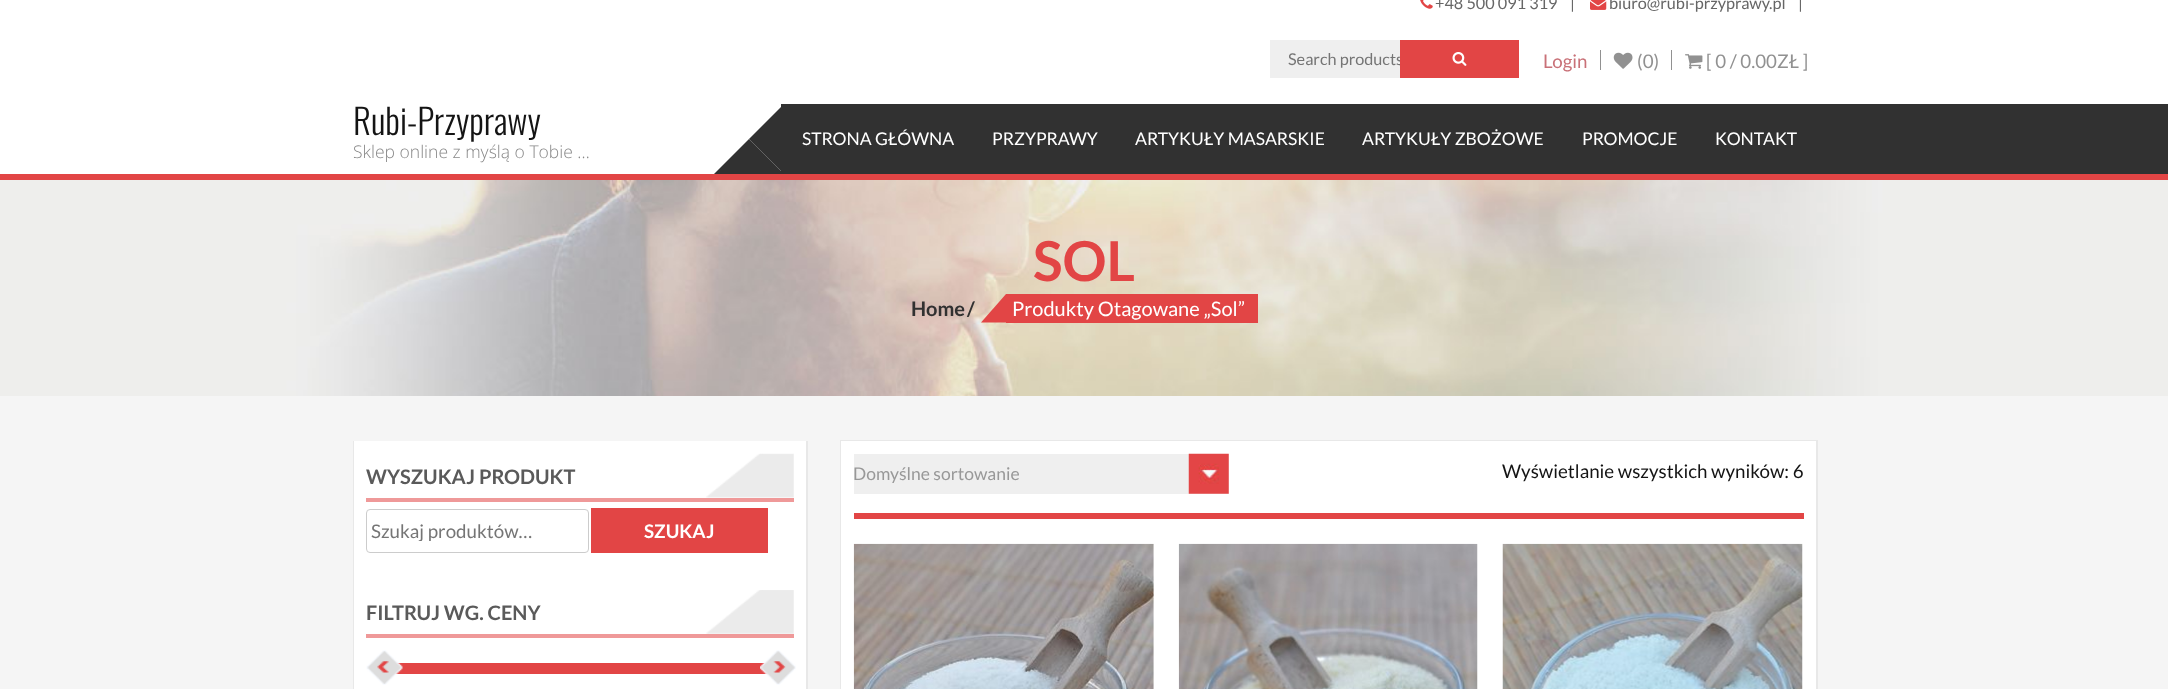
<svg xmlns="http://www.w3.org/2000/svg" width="2168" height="689">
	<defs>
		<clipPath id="clip1"><rect x="371" y="519" width="208" height="22" /></clipPath>
	</defs>
	<rect width="100%" height="100%" fill="#FFFFFF" />
	<image x="1420" y="0" width="13" height="9" href="assets/img1.png" />
	<g font-family="Lato" font-size="16.25" fill="#666666">
		<text x="1435" y="9">+48 500 091 319</text>
		<text x="1570" y="9">|</text>
	</g>
	<image x="1590" y="0" width="17" height="10" href="assets/img2.png" />
	<g font-family="Lato" font-size="16.25" fill="#666666">
		<text x="1609" y="9">biuro@rubi-przyprawy.pl</text>
		<text x="1798" y="9">|</text>
	</g>
	<rect x="1270" y="40" width="130" height="38" fill="#EFEFEF" />
	<text x="1288" y="65" font-family="Lato" font-size="16.25" fill="#757575">Search products</text>
	<rect x="1400" y="40" width="119" height="38" fill="#E24545" />
	<image x="1452" y="52" width="15" height="14" href="assets/img3.png" />
	<text x="1543" y="68" font-family="Lato" font-size="18.75" fill="#C97178">Login</text>
	<rect x="1671" y="50" width="1" height="20" fill="#919191" />
	<rect x="1600" y="50" width="1" height="20" fill="#919191" />
	<image x="1613" y="52" width="20" height="17" href="assets/img4.png" />
	<text x="1637" y="68" font-family="Lato" font-size="18.75" fill="#919191">(0)</text>
	<image x="1685" y="54" width="18" height="15" href="assets/img5.png" />
	<text x="1706" y="68" font-family="Lato" font-size="18.75" fill="#919191">[ 0 / 0.00ZŁ ]</text>
	<rect x="0" y="174" width="2168" height="6" fill="#E24545" />
	<rect x="781" y="104" width="1387" height="70" fill="#313131" />
	<text x="353" y="135" font-family="Oswald" font-size="35" font-weight="300" fill="#141414">Rubi-Przyprawy</text>
	<text x="353" y="158" font-family="Open Sans" font-size="17.5" font-weight="300" fill="#888888">Sklep online z myślą o Tobie …</text>
	<path d="M784 104V174L749 139Z" fill="#313131" />
	<path d="M784 174H714L749 139Z" fill="#313131" />
	<g font-family="Lato" font-size="17.5" fill="#FFFFFF">
		<text x="802" y="145">STRONA GŁÓWNA</text>
		<text x="992" y="145">PRZYPRAWY</text>
		<text x="1135" y="145">ARTYKUŁY MASARSKIE</text>
		<text x="1362" y="145">ARTYKUŁY ZBOŻOWE</text>
		<text x="1582" y="145">PROMOCJE</text>
		<text x="1715" y="145">KONTAKT</text>
	</g>
	<image x="0" y="180" width="2168" height="216" href="assets/img6.png" />
	<text x="1033" y="281" font-family="Lato" font-size="55" font-weight="700" fill="#E24545">SOL</text>
	<g font-family="Lato" font-size="20" font-weight="700" fill="#313131">
		<text x="911" y="316">Home</text>
		<text x="967" y="316">/</text>
	</g>
	<rect x="1006" y="294" width="252" height="29" fill="#E24545" />
	<path d="M1006 294V322.5H981Z" fill="#E24545" />
	<text x="1012" y="316" font-family="Lato" font-size="20" fill="#FFFFFF">Produkty Otagowane „Sol”</text>
	<rect x="0" y="396" width="2168" height="293" fill="#F5F5F5" />
	<rect x="353" y="441" width="455" height="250" fill="#000000" fill-opacity="0.05" filter="blur(0.5px)" />
	<rect x="354" y="441" width="452" height="248" fill="#FFFFFF" />
	<image x="706" y="453" width="88" height="45" href="assets/img7.png" />
	<rect x="366" y="498" width="428" height="4" fill="#EF9999" />
	<text x="366" y="484" font-family="Lato" font-size="20" font-weight="700" fill="#5A5A5A">WYSZUKAJ PRODUKT</text>
	<rect x="366.5" y="509.5" width="222" height="43" rx="3.5" fill="none" stroke="#CCCCCC" />
	<g clip-path="url(#clip1)">
		<text x="371" y="538" font-family="Lato" font-size="18.75" fill="#757575">Szukaj produktów…</text>
	</g>
	<rect x="591" y="508" width="177" height="45" fill="#E24545" />
	<text x="644" y="538" font-family="Lato" font-size="18.75" font-weight="700" fill="#FFFFFF">SZUKAJ</text>
	<image x="706" y="590" width="88" height="44" href="assets/img8.png" />
	<rect x="366" y="634" width="428" height="4" fill="#EF9999" />
	<text x="366" y="620" font-family="Lato" font-size="20" font-weight="700" fill="#5A5A5A">FILTRUJ WG. CENY</text>
	<rect x="395" y="663" width="373" height="11" fill="#E24545" />
	<image x="366" y="650" width="37" height="35" href="assets/img9.png" />
	<image x="760" y="650" width="36" height="35" href="assets/img10.png" />
	<rect x="840" y="440" width="978" height="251" fill="#000000" fill-opacity="0.05" filter="blur(0.5px)" />
	<rect x="841" y="441" width="975" height="248" fill="#FFFFFF" />
	<rect x="854" y="454" width="375" height="40" fill="#EFEFEF" />
	<image x="1188" y="453" width="41" height="41" href="assets/img11.png" />
	<text x="853" y="480" font-family="Lato" font-size="17.5" fill="#989898">Domyślne sortowanie</text>
	<text x="1502" y="478" font-family="Lato" font-size="18.75" fill="#141414">Wyświetlanie wszystkich wyników: 6</text>
	<rect x="854" y="513" width="950" height="6" fill="#E24545" />
	<image x="853" y="543" width="301" height="146" href="assets/img12.png" />
	<image x="1178" y="543" width="300" height="146" href="assets/img13.png" />
	<image x="1502" y="543" width="301" height="146" href="assets/img14.png" />
</svg>
